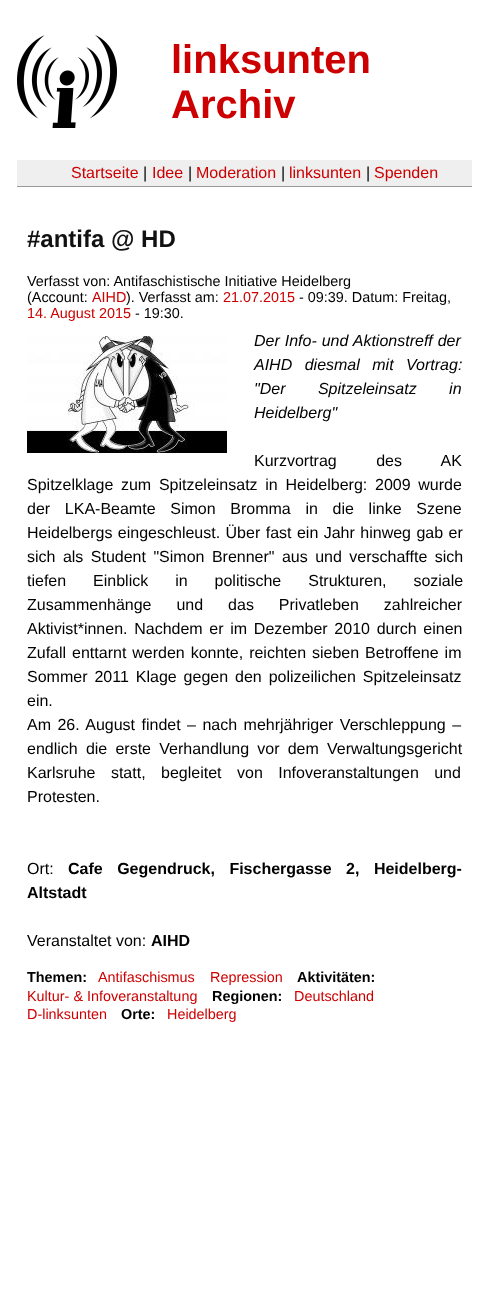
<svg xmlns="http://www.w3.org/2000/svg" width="489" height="1301">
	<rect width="100%" height="100%" fill="#FFFFFF" />
	<image x="17" y="35" width="100" height="93" href="assets/img1.png" />
	<g font-family="Liberation Sans" font-size="40" font-weight="700" fill="#CC0000">
		<text x="171" y="73">linksunten</text>
		<text x="171" y="118">Archiv</text>
	</g>
	<rect x="17" y="160" width="455" height="26" fill="#EFEFEF" />
	<rect x="17" y="186" width="455" height="1" fill="#999999" />
	<text x="71" y="178" font-family="Liberation Sans" font-size="16" fill="#CC0000">Startseite</text>
	<text x="143" y="178" font-family="Liberation Sans" font-size="16" fill="#000000">|</text>
	<text x="152" y="178" font-family="Liberation Sans" font-size="16" fill="#CC0000">Idee</text>
	<text x="188" y="178" font-family="Liberation Sans" font-size="16" fill="#000000">|</text>
	<text x="196" y="178" font-family="Liberation Sans" font-size="16" fill="#CC0000">Moderation</text>
	<text x="281" y="178" font-family="Liberation Sans" font-size="16" fill="#000000">|</text>
	<text x="289" y="178" font-family="Liberation Sans" font-size="16" fill="#CC0000">linksunten</text>
	<text x="366" y="178" font-family="Liberation Sans" font-size="16" fill="#000000">|</text>
	<text x="374" y="178" font-family="Liberation Sans" font-size="16" fill="#CC0000">Spenden</text>
	<text x="27" y="247" font-family="Liberation Sans" font-size="24" font-weight="700" fill="#111111">#antifa @ HD</text>
	<g font-family="Liberation Sans" font-size="14.4" fill="#000000">
		<text x="27" y="286">Verfasst von: Antifaschistische Initiative Heidelberg</text>
		<text x="27" y="302">(Account:</text>
	</g>
	<text x="92" y="302" font-family="Liberation Sans" font-size="14.4" fill="#CC0000">AIHD</text>
	<text x="126" y="302" font-family="Liberation Sans" font-size="14.4" fill="#000000">). Verfasst am:</text>
	<text x="223" y="302" font-family="Liberation Sans" font-size="14.4" fill="#CC0000">21.07.2015</text>
	<text x="299" y="302" font-family="Liberation Sans" font-size="14.4" fill="#000000">- 09:39. Datum: Freitag,</text>
	<text x="27" y="318" font-family="Liberation Sans" font-size="14.4" fill="#CC0000">14. August 2015</text>
	<text x="135" y="318" font-family="Liberation Sans" font-size="14.4" fill="#000000">- 19:30.</text>
	<g font-family="Liberation Sans" font-size="16" font-style="italic" fill="#000000">
		<text x="254" y="346" word-spacing="0.5">Der Info- und Aktionstreff der</text>
		<text x="254" y="370" word-spacing="8">AIHD diesmal mit Vortrag:</text>
		<text x="254" y="394" word-spacing="28">"Der Spitzeleinsatz in</text>
		<text x="254" y="418">Heidelberg"</text>
	</g>
	<g font-family="Liberation Sans" font-size="16" fill="#000000">
		<text x="254" y="466" word-spacing="35">Kurzvortrag des AK</text>
		<text x="27" y="490" word-spacing="3.25">Spitzelklage zum Spitzeleinsatz in Heidelberg: 2009 wurde</text>
		<text x="27" y="514" word-spacing="10.25">der LKA-Beamte Simon Bromma in die linke Szene</text>
		<text x="27" y="538" word-spacing="1">Heidelbergs eingeschleust. Über fast ein Jahr hinweg gab er</text>
		<text x="27" y="562" word-spacing="3">sich als Student "Simon Brenner" aus und verschaffte sich</text>
		<text x="27" y="586" word-spacing="22.5">tiefen Einblick in politische Strukturen, soziale</text>
		<text x="27" y="610" word-spacing="20.5">Zusammenhänge und das Privatleben zahlreicher</text>
		<text x="27" y="634" word-spacing="2.25">Aktivist*innen. Nachdem er im Dezember 2010 durch einen</text>
		<text x="27" y="658" word-spacing="1.5">Zufall enttarnt werden konnte, reichten sieben Betroffene im</text>
		<text x="27" y="682" word-spacing="2.5">Sommer 2011 Klage gegen den polizeilichen Spitzeleinsatz</text>
		<text x="27" y="706">ein.</text>
		<text x="27" y="730" word-spacing="2">Am 26. August findet – nach mehrjähriger Verschleppung –</text>
		<text x="27" y="754" word-spacing="3.75">endlich die erste Verhandlung vor dem Verwaltungsgericht</text>
		<text x="27" y="778" word-spacing="11">Karlsruhe statt, begleitet von Infoveranstaltungen und</text>
		<text x="27" y="802">Protesten.</text>
		<text x="27" y="874">Ort:</text>
	</g>
	<g font-family="Liberation Sans" font-size="16" font-weight="700" fill="#000000">
		<text x="68" y="874" word-spacing="10">Cafe Gegendruck, Fischergasse 2, Heidelberg-</text>
		<text x="27" y="898">Altstadt</text>
	</g>
	<text x="27" y="946" font-family="Liberation Sans" font-size="16" fill="#000000">Veranstaltet von:</text>
	<text x="151" y="946" font-family="Liberation Sans" font-size="16" font-weight="700" fill="#000000">AIHD</text>
	<image x="27" y="336" width="200" height="117" href="assets/img2.png" />
	<text x="27" y="982" font-family="Liberation Sans" font-size="14.4" font-weight="700" fill="#000000">Themen:</text>
	<g font-family="Liberation Sans" font-size="14.4" fill="#CC0000">
		<text x="98" y="982">Antifaschismus</text>
		<text x="210" y="982">Repression</text>
	</g>
	<text x="297" y="982" font-family="Liberation Sans" font-size="14.4" font-weight="700" fill="#000000">Aktivitäten:</text>
	<text x="27" y="1001" font-family="Liberation Sans" font-size="14.4" fill="#CC0000">Kultur- &amp; Infoveranstaltung</text>
	<text x="212" y="1001" font-family="Liberation Sans" font-size="14.4" font-weight="700" fill="#000000">Regionen:</text>
	<g font-family="Liberation Sans" font-size="14.4" fill="#CC0000">
		<text x="294" y="1001">Deutschland</text>
		<text x="27" y="1019">D-linksunten</text>
	</g>
	<text x="121" y="1019" font-family="Liberation Sans" font-size="14.4" font-weight="700" fill="#000000">Orte:</text>
	<text x="167" y="1019" font-family="Liberation Sans" font-size="14.4" fill="#CC0000">Heidelberg</text>
</svg>
